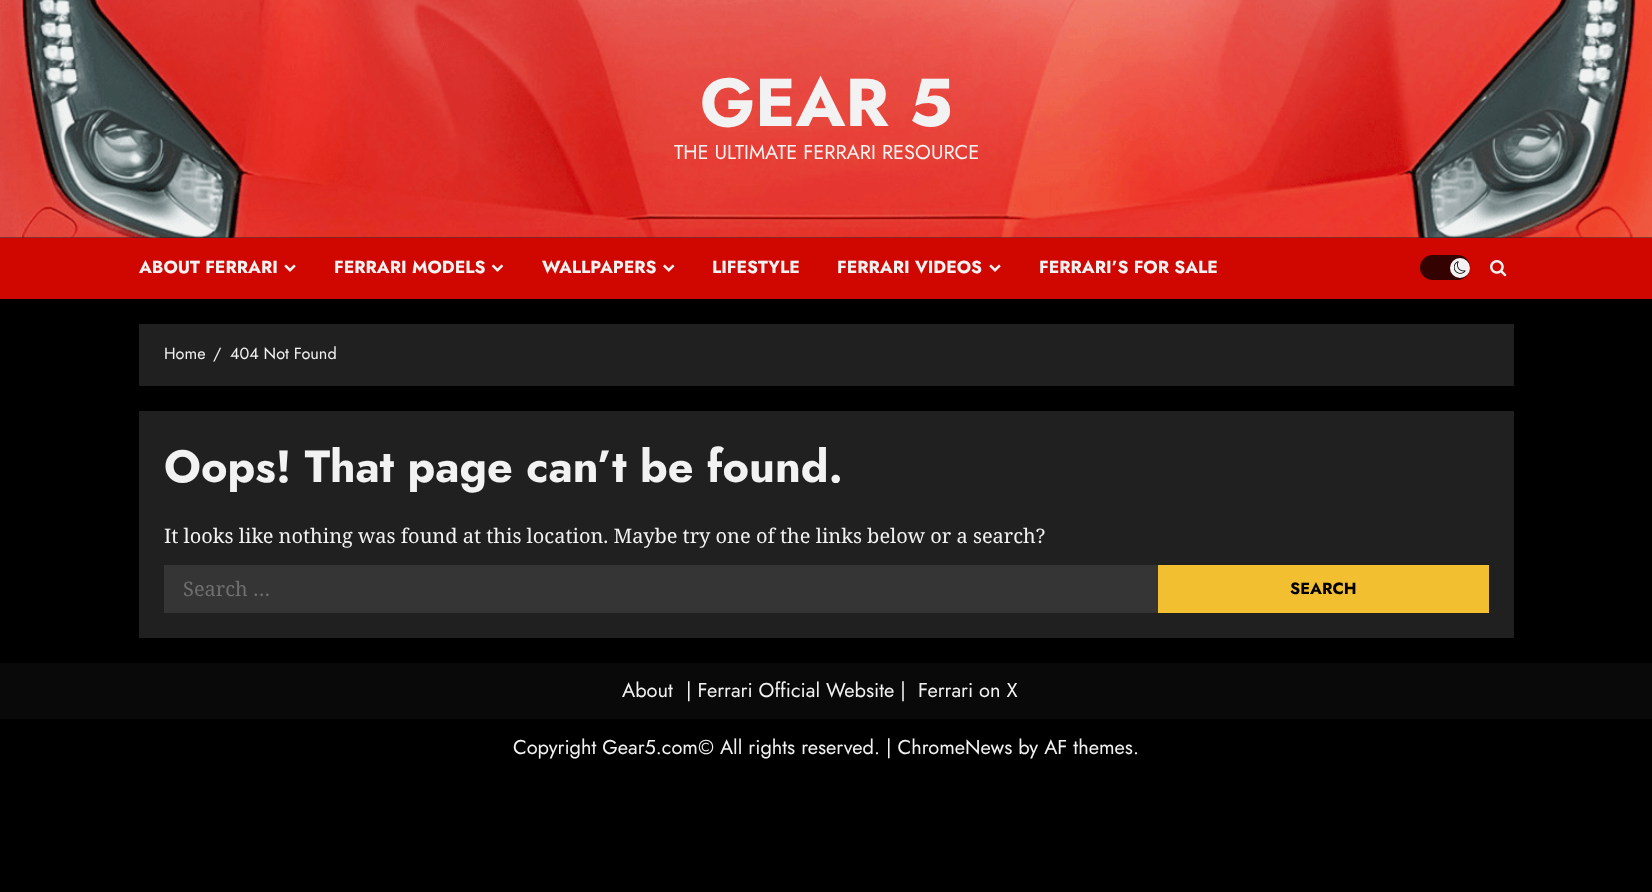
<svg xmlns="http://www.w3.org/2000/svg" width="1652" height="892">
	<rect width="100%" height="100%" fill="#000000" />
	<rect x="0" y="237" width="1652" height="1" fill="#1E1E1E" />
	<image x="0" y="0" width="1652" height="238" href="assets/img1.png" />
	<text x="700" y="126" font-family="Jost" font-size="67.5" font-weight="700" fill="#F2F2F2">GEAR 5</text>
	<text x="674" y="159" font-family="Jost" font-size="20" fill="#F2F2F2">THE ULTIMATE FERRARI RESOURCE</text>
	<rect x="0" y="238" width="1652" height="61" fill="#D00700" />
	<text x="139" y="273" font-family="Jost" font-size="17.5" font-weight="700" fill="#F2F2F2">ABOUT FERRARI</text>
	<image x="284" y="264" width="12" height="8" href="assets/img2.png" />
	<text x="334" y="273" font-family="Jost" font-size="17.5" font-weight="700" fill="#F2F2F2">FERRARI MODELS</text>
	<image x="491" y="264" width="13" height="8" href="assets/img3.png" />
	<text x="542" y="273" font-family="Jost" font-size="17.5" font-weight="700" fill="#F2F2F2">WALLPAPERS</text>
	<image x="663" y="264" width="12" height="8" href="assets/img4.png" />
	<g font-family="Jost" font-size="17.5" font-weight="700" fill="#F2F2F2">
		<text x="712" y="273">LIFESTYLE</text>
		<text x="837" y="273">FERRARI VIDEOS</text>
	</g>
	<image x="989" y="264" width="12" height="8" href="assets/img2.png" />
	<text x="1039" y="273" font-family="Jost" font-size="17.5" font-weight="700" fill="#F2F2F2">FERRARI’S FOR SALE</text>
	<rect x="1420" y="255" width="50" height="25" rx="12.5" fill="#340200" />
	<circle cx="1460" cy="268" r="10" fill="#F2F2F2" />
	<image x="1454" y="261" width="12" height="13" href="assets/img5.png" />
	<image x="1490" y="260" width="17" height="17" href="assets/img6.png" />
	<rect x="139" y="324" width="1375" height="62" fill="#202020" />
	<g font-family="Jost" font-size="16.25" fill="#F2F2F2">
		<text x="164" y="359">Home</text>
		<text x="213" y="359">/</text>
		<text x="230" y="359">404 Not Found</text>
	</g>
	<rect x="139" y="411" width="1375" height="227" fill="#202020" />
	<text x="164" y="482" font-family="Jost" font-size="45" font-weight="700" fill="#F2F2F2">Oops! That page can’t be found.</text>
	<text x="164" y="543" font-family="Noto Serif" font-size="20" fill="#F2F2F2">It looks like nothing was found at this location. Maybe try one of the links below or a search?</text>
	<rect x="164" y="565" width="994" height="48" fill="#353535" />
	<text x="183" y="596" font-family="Noto Serif" font-size="20" fill="#6F6F6F">Search …</text>
	<rect x="1158" y="565" width="331" height="48" fill="#F2BF31" />
	<text x="1290" y="594" font-family="Jost" font-size="16.25" font-weight="700" fill="#000000">SEARCH</text>
	<rect x="0" y="663" width="1652" height="56" fill="#090909" />
	<g font-family="Jost" font-size="20" fill="#F2F2F2">
		<text x="622" y="697">About</text>
		<text x="686" y="697">| Ferrari Official Website |</text>
		<text x="918" y="697">Ferrari on X</text>
		<text x="513" y="754">Copyright Gear5.com© All rights reserved. | ChromeNews by AF themes.</text>
	</g>
</svg>
